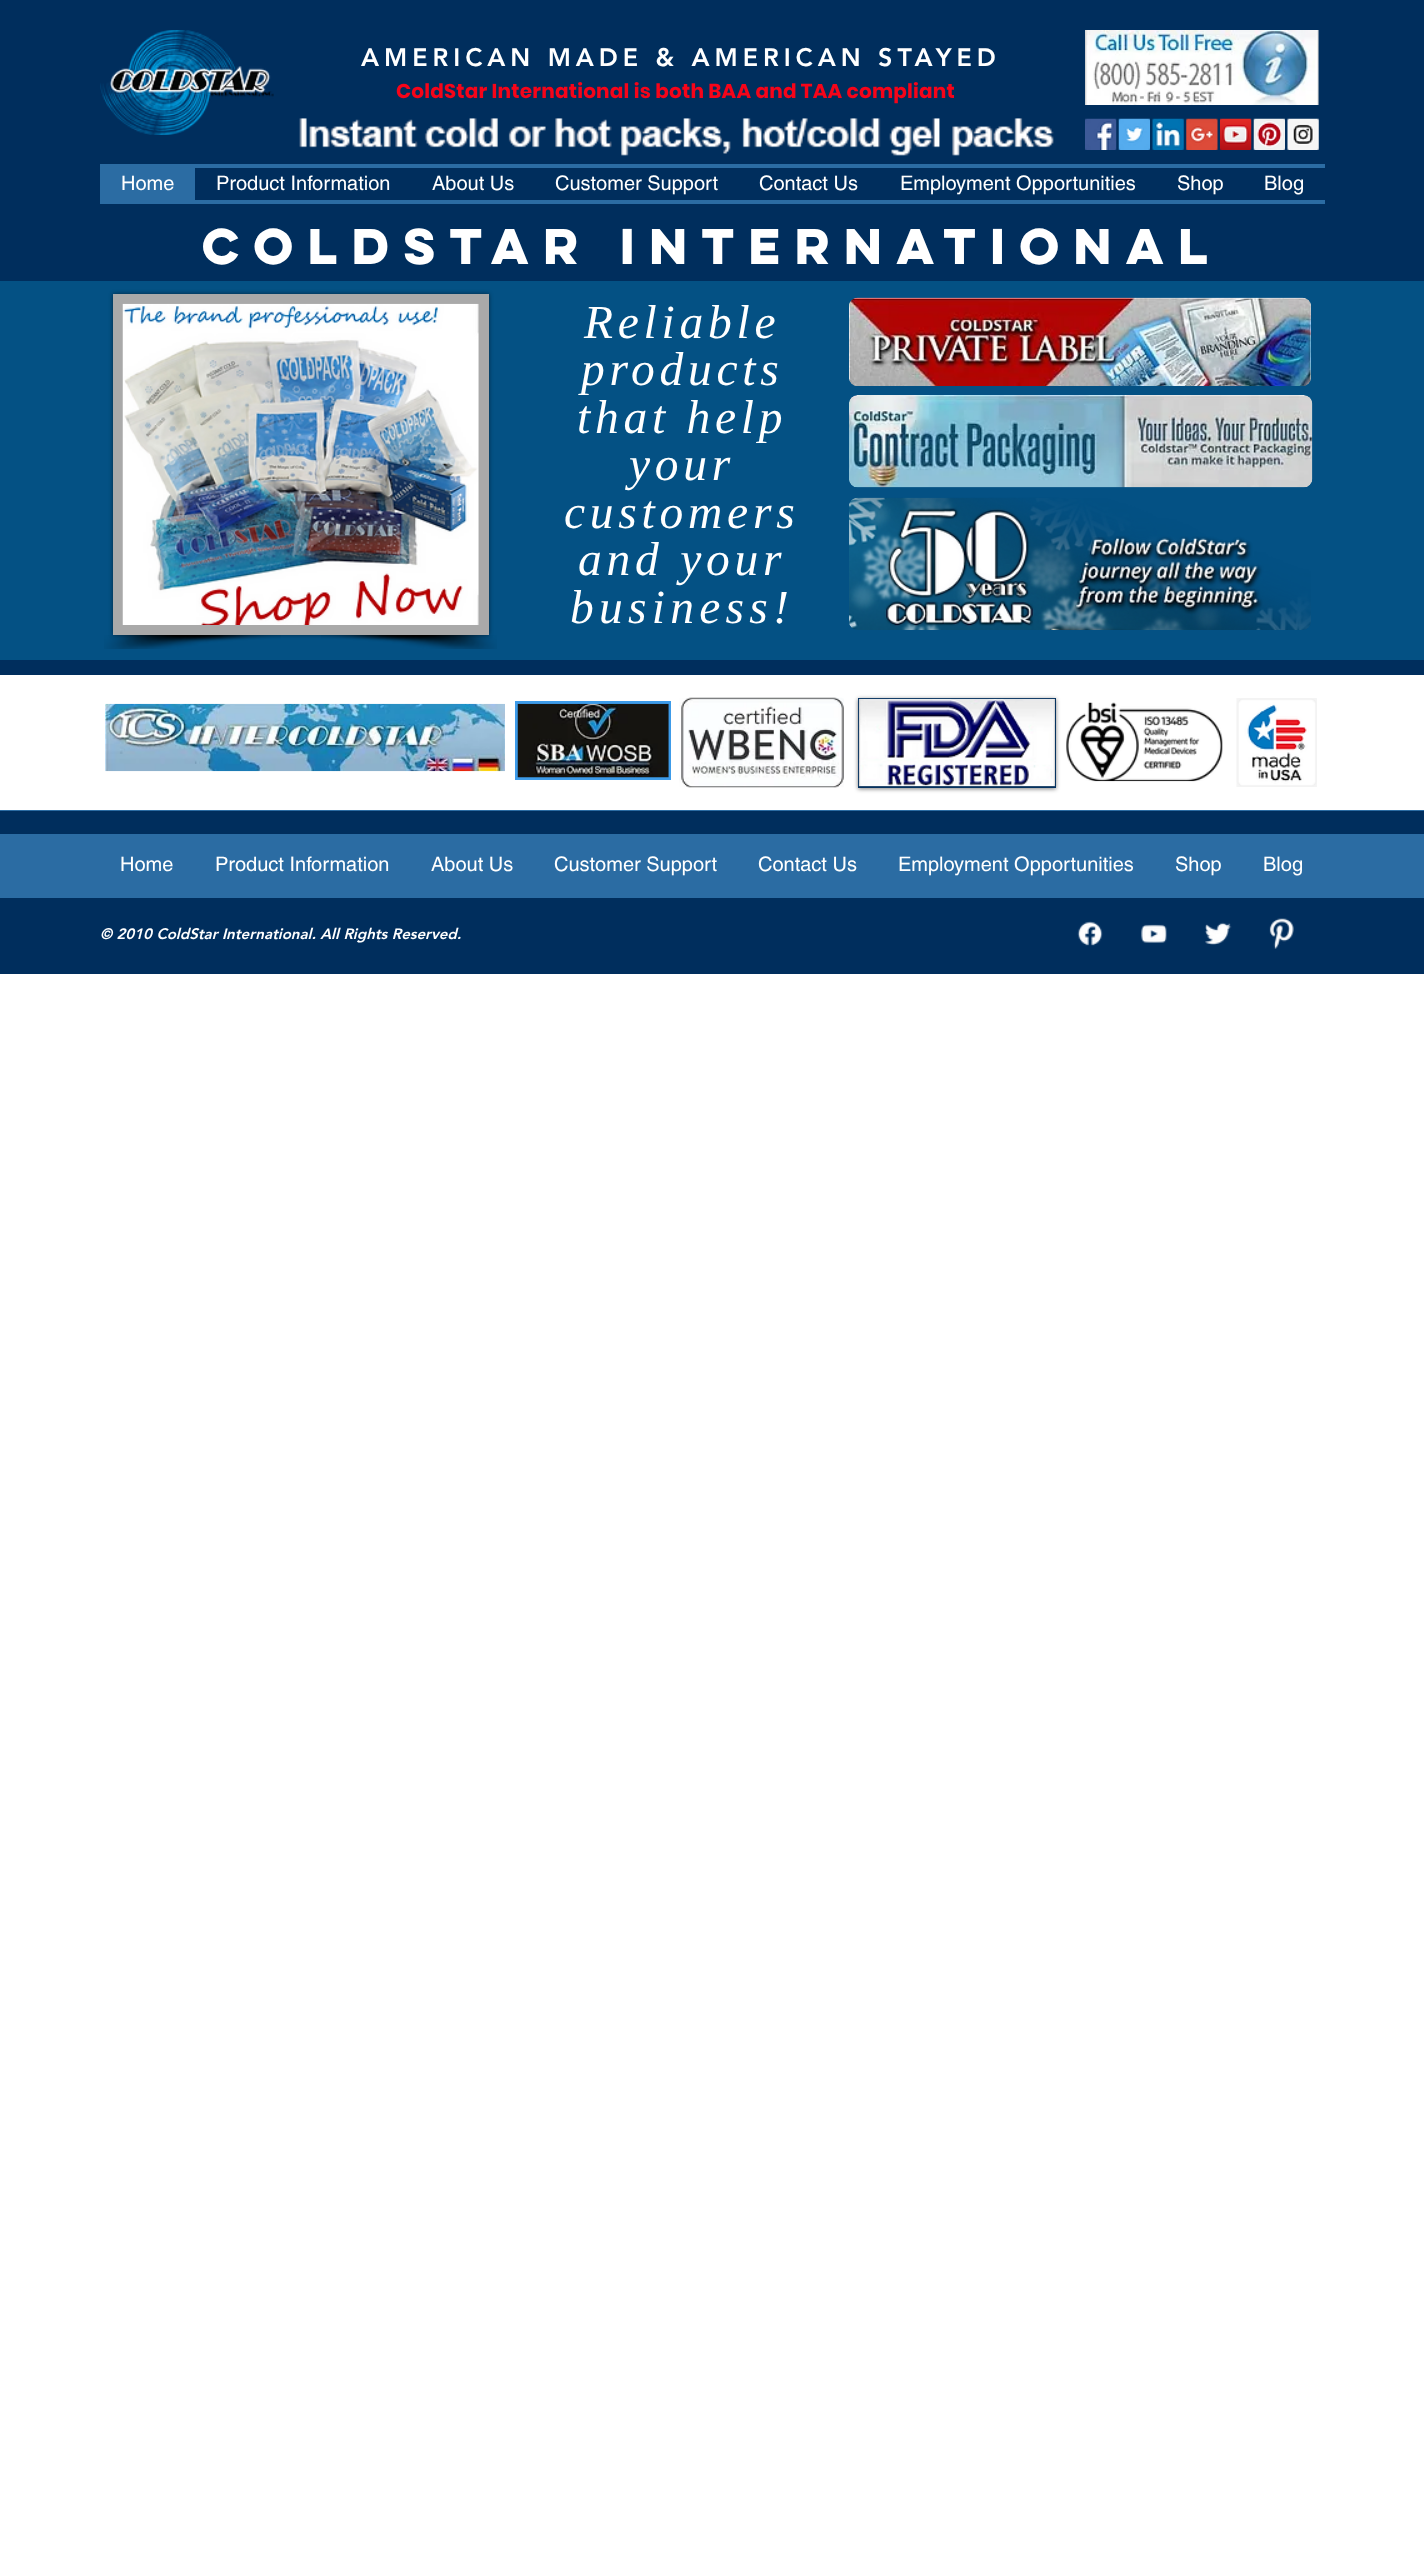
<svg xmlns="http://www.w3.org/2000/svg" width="1424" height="2562">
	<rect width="100%" height="100%" fill="#FFFFFF" />
	<rect x="0" y="0" width="1424" height="281" fill="#002E5D" />
	<image x="100" y="30" width="174" height="105" href="assets/img1.png" />
	<text x="361" y="66" font-family="'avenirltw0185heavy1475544'" font-size="25" font-weight="900" letter-spacing="5" fill="#FFFFFF">AMERICAN MADE &amp; AMERICAN STAYED</text>
	<image x="1085" y="30" width="234" height="75" href="assets/img2.png" />
	<text x="396" y="98" font-family="Poppins" font-size="20" font-weight="700" letter-spacing="0.2" fill="#F60419">ColdStar International is both BAA and TAA compliant</text>
	<image x="299" y="118" width="755" height="38" href="assets/img3.png" />
	<image x="1085" y="118" width="32" height="32" href="assets/img4.png" />
	<image x="1118" y="118" width="32" height="32" href="assets/img5.png" />
	<image x="1152" y="118" width="32" height="32" href="assets/img6.png" />
	<image x="1186" y="118" width="32" height="32" href="assets/img7.png" />
	<image x="1220" y="118" width="32" height="32" href="assets/img8.png" />
	<image x="1253" y="118" width="32" height="32" href="assets/img9.png" />
	<image x="1287" y="118" width="32" height="32" href="assets/img10.png" />
	<rect x="100" y="164" width="1225" height="4" fill="#2B6CA3" />
	<rect x="100" y="200" width="1225" height="4" fill="#2B6CA3" />
	<rect x="100" y="168" width="95" height="32" fill="#2B6CA3" />
	<g font-family="helvetica" font-size="20" fill="#FFFFFF">
		<text x="121" y="190">Home</text>
		<text x="216" y="190">Product Information</text>
		<text x="432" y="190">About Us</text>
		<text x="555" y="190">Customer Support</text>
		<text x="759" y="190">Contact Us</text>
		<text x="900" y="190">Employment Opportunities</text>
		<text x="1177" y="190">Shop</text>
		<text x="1264" y="190">Blog</text>
	</g>
	<text x="202" y="264" font-family="'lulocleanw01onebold'" font-size="45" font-weight="700" letter-spacing="4.5" fill="#FFFFFF">COLDSTAR INTERNATIONAL</text>
	<rect x="0" y="281" width="1424" height="379" fill="#045184" />
	<rect x="113" y="294" width="376" height="341" fill="#000000" fill-opacity="0.5" filter="blur(2px)" />
	<rect x="113" y="294" width="376" height="341" fill="#A9A9A9" />
	<image x="122" y="303" width="357" height="322" href="assets/img11.png" />
	<image x="104" y="635" width="177" height="14" href="assets/img12.png" />
	<image x="321" y="635" width="176" height="14" href="assets/img13.png" />
	<g font-family="Liberation Serif" font-size="47.5" font-style="italic" letter-spacing="4.75" fill="#FFFFFF">
		<text x="584" y="338">Reliable</text>
		<text x="581" y="385">products</text>
		<text x="577" y="433">that help</text>
		<text x="629" y="480">your</text>
		<text x="564" y="528">customers</text>
		<text x="578" y="575">and your</text>
	</g>
	<text x="570" y="623" font-family="Liberation Serif" font-size="47.5" font-style="italic" letter-spacing="5.25" fill="#FFFFFF">business</text>
	<text x="773" y="623" font-family="Liberation Serif" font-size="47.5" font-style="italic" letter-spacing="4.75" fill="#FFFFFF">!</text>
	<image x="849" y="297" width="462" height="89" href="assets/img14.png" />
	<image x="849" y="395" width="464" height="93" href="assets/img15.png" />
	<image x="849" y="497" width="462" height="133" href="assets/img16.png" />
	<rect x="0" y="660" width="1424" height="15" fill="#002E5D" />
	<image x="105" y="703" width="400" height="69" href="assets/img17.png" />
	<rect x="515" y="701" width="156" height="79" fill="#3D9BE9" />
	<image x="517" y="703" width="152" height="75" href="assets/img18.png" />
	<image x="679" y="697" width="165" height="91" href="assets/img19.png" />
	<rect x="858" y="699" width="198" height="90" fill="#000000" fill-opacity="0.5" filter="blur(2px)" />
	<rect x="858" y="698" width="198" height="90" fill="#002E5D" fill-opacity="0.82" />
	<rect x="858.5" y="698.5" width="197" height="89" fill="none" stroke="#002E5D" stroke-opacity="0.82" />
	<image x="858" y="698" width="197" height="89" href="assets/img20.png" />
	<image x="1066" y="702" width="157" height="80" href="assets/img21.png" />
	<image x="1236" y="698" width="81" height="89" href="assets/img22.png" />
	<rect x="0" y="810" width="1424" height="88" fill="#2B6CA3" />
	<rect x="0" y="898" width="1424" height="76" fill="#002E5D" />
	<rect x="0" y="811" width="1424" height="23" fill="#002E5D" />
	<g font-family="helvetica" font-size="20" fill="#FFFFFF">
		<text x="120" y="871">Home</text>
		<text x="215" y="871">Product Information</text>
		<text x="431" y="871">About Us</text>
		<text x="554" y="871">Customer Support</text>
		<text x="758" y="871">Contact Us</text>
		<text x="898" y="871">Employment Opportunities</text>
		<text x="1175" y="871">Shop</text>
		<text x="1263" y="871">Blog</text>
	</g>
	<text x="100" y="939" font-family="'avenirltw0185heavy1475544'" font-size="15" font-weight="900" font-style="italic" fill="#FFFFFF">© 2010 ColdStar International. All Rights Reserved.</text>
	<image x="1077" y="921" width="26" height="25" href="assets/img23.png" />
	<image x="1141" y="924" width="26" height="19" href="assets/img24.png" />
	<image x="1205" y="922" width="27" height="23" href="assets/img25.png" />
	<image x="1269" y="918" width="25" height="31" href="assets/img26.png" />
</svg>
